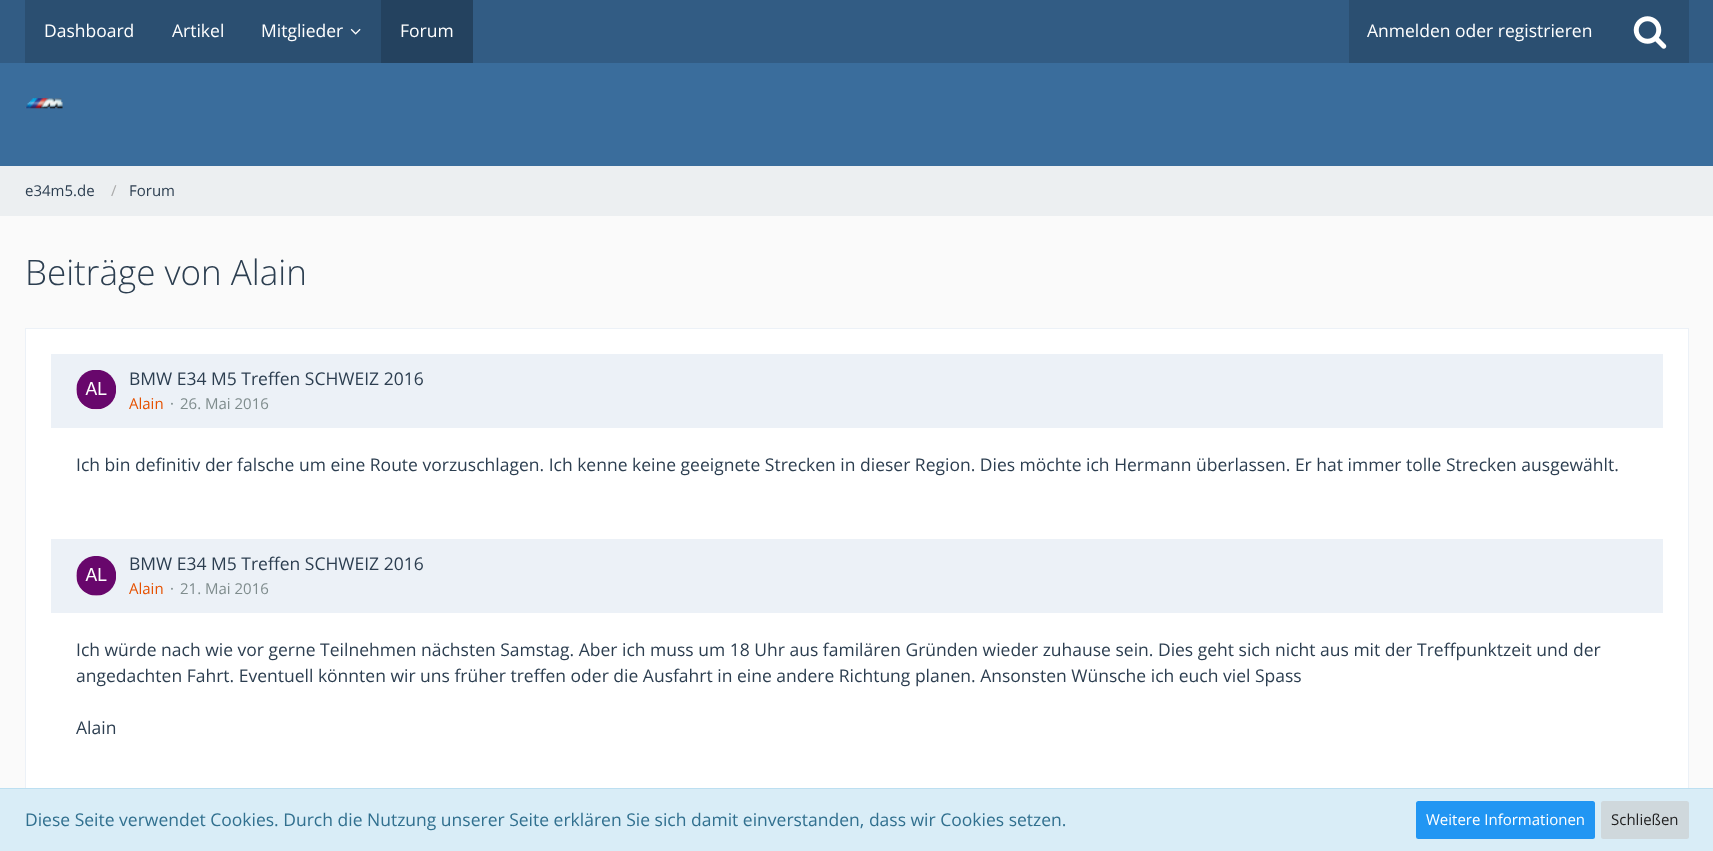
<svg xmlns="http://www.w3.org/2000/svg" width="1713" height="851">
	<rect width="100%" height="100%" fill="#FAFAFA" />
	<rect x="0" y="63" width="1713" height="103" fill="#3A6D9C" />
	<rect x="0" y="0" width="1713" height="63" fill="#325C84" />
	<rect x="25" y="0" width="356" height="63" fill="#2B4F71" />
	<g font-family="Open Sans" font-size="17.5" fill="#FFFFFF">
		<text x="44" y="37">Dashboard</text>
		<text x="172" y="37">Artikel</text>
		<text x="261" y="37">Mitglieder</text>
	</g>
	<image x="350" y="28" width="11" height="7" href="assets/img1.png" />
	<rect x="381" y="0" width="92" height="63" fill="#24425F" />
	<text x="400" y="37" font-family="Open Sans" font-size="17.5" fill="#FFFFFF">Forum</text>
	<rect x="1349" y="0" width="340" height="63" fill="#2B4F71" />
	<text x="1367" y="37" font-family="Open Sans" font-size="17.5" fill="#FFFFFF">Anmelden oder registrieren</text>
	<image x="1633" y="16" width="34" height="33" href="assets/img2.png" />
	<image x="25" y="98" width="38" height="11" href="assets/img3.png" />
	<rect x="0" y="166" width="1713" height="50" fill="#ECEFF1" />
	<text x="25" y="196" font-family="Open Sans" font-size="15" fill="#2C3E50">e34m5.de</text>
	<text x="111" y="196" font-family="Open Sans" font-size="15" fill="#AAAAAA">/</text>
	<text x="129" y="196" font-family="Open Sans" font-size="15" fill="#2C3E50">Forum</text>
	<text x="25" y="285" font-family="Open Sans" font-size="35" font-weight="300" fill="#2C3E50">Beiträge von Alain</text>
	<rect x="26" y="329" width="1662" height="459" fill="#FFFFFF" />
	<rect x="25.5" y="328.5" width="1663" height="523" fill="none" stroke="#ECF1F7" />
	<rect x="51" y="354" width="1612" height="74" fill="#ECF1F7" />
	<circle cx="96" cy="390" r="20" fill="#FFFFFF" />
	<image x="76" y="370" width="40" height="40" href="assets/img4.png" />
	<text x="129" y="385" font-family="Open Sans" font-size="17.5" fill="#2C3E50">BMW E34 M5 Treffen SCHWEIZ 2016</text>
	<text x="129" y="409" font-family="Open Sans" font-size="15" fill="#E65100">Alain</text>
	<g font-family="Open Sans" font-size="15" fill="#7F8C8D">
		<text x="170" y="409">·</text>
		<text x="180" y="409">26. Mai 2016</text>
	</g>
	<text x="76" y="471" font-family="Open Sans" font-size="17.5" fill="#2C3E50">Ich bin definitiv der falsche um eine Route vorzuschlagen. Ich kenne keine geeignete Strecken in dieser Region. Dies möchte ich Hermann überlassen. Er hat immer tolle Strecken ausgewählt.</text>
	<rect x="51" y="539" width="1612" height="74" fill="#ECF1F7" />
	<circle cx="96" cy="576" r="20" fill="#FFFFFF" />
	<image x="76" y="556" width="40" height="40" href="assets/img5.png" />
	<text x="129" y="570" font-family="Open Sans" font-size="17.5" fill="#2C3E50">BMW E34 M5 Treffen SCHWEIZ 2016</text>
	<text x="129" y="594" font-family="Open Sans" font-size="15" fill="#E65100">Alain</text>
	<g font-family="Open Sans" font-size="15" fill="#7F8C8D">
		<text x="170" y="594">·</text>
		<text x="180" y="594">21. Mai 2016</text>
	</g>
	<g font-family="Open Sans" font-size="17.5" fill="#2C3E50">
		<text x="76" y="656">Ich würde nach wie vor gerne Teilnehmen nächsten Samstag. Aber ich muss um 18 Uhr aus familären Gründen wieder zuhause sein. Dies geht sich nicht aus mit der Treffpunktzeit und der</text>
		<text x="76" y="682">angedachten Fahrt. Eventuell könnten wir uns früher treffen oder die Ausfahrt in eine andere Richtung planen. Ansonsten Wünsche ich euch viel Spass</text>
		<text x="76" y="734">Alain</text>
	</g>
	<rect x="0" y="789" width="1713" height="62" fill="#D9EDF7" />
	<rect x="0" y="788" width="1713" height="1" fill="#BCDFF1" />
	<text x="25" y="826" font-family="Open Sans" font-size="17.5" fill="#31708F">Diese Seite verwendet Cookies. Durch die Nutzung unserer Seite erklären Sie sich damit einverstanden, dass wir Cookies setzen.</text>
	<rect x="1416" y="801" width="179" height="38" rx="2.5" fill="#2196F3" />
	<text x="1426" y="825" font-family="Open Sans" font-size="15" fill="#FFFFFF">Weitere Informationen</text>
	<rect x="1601" y="801" width="88" height="38" rx="2.5" fill="#CFD8DC" />
	<text x="1611" y="825" font-family="Open Sans" font-size="15" fill="#212121">Schließen</text>
</svg>
